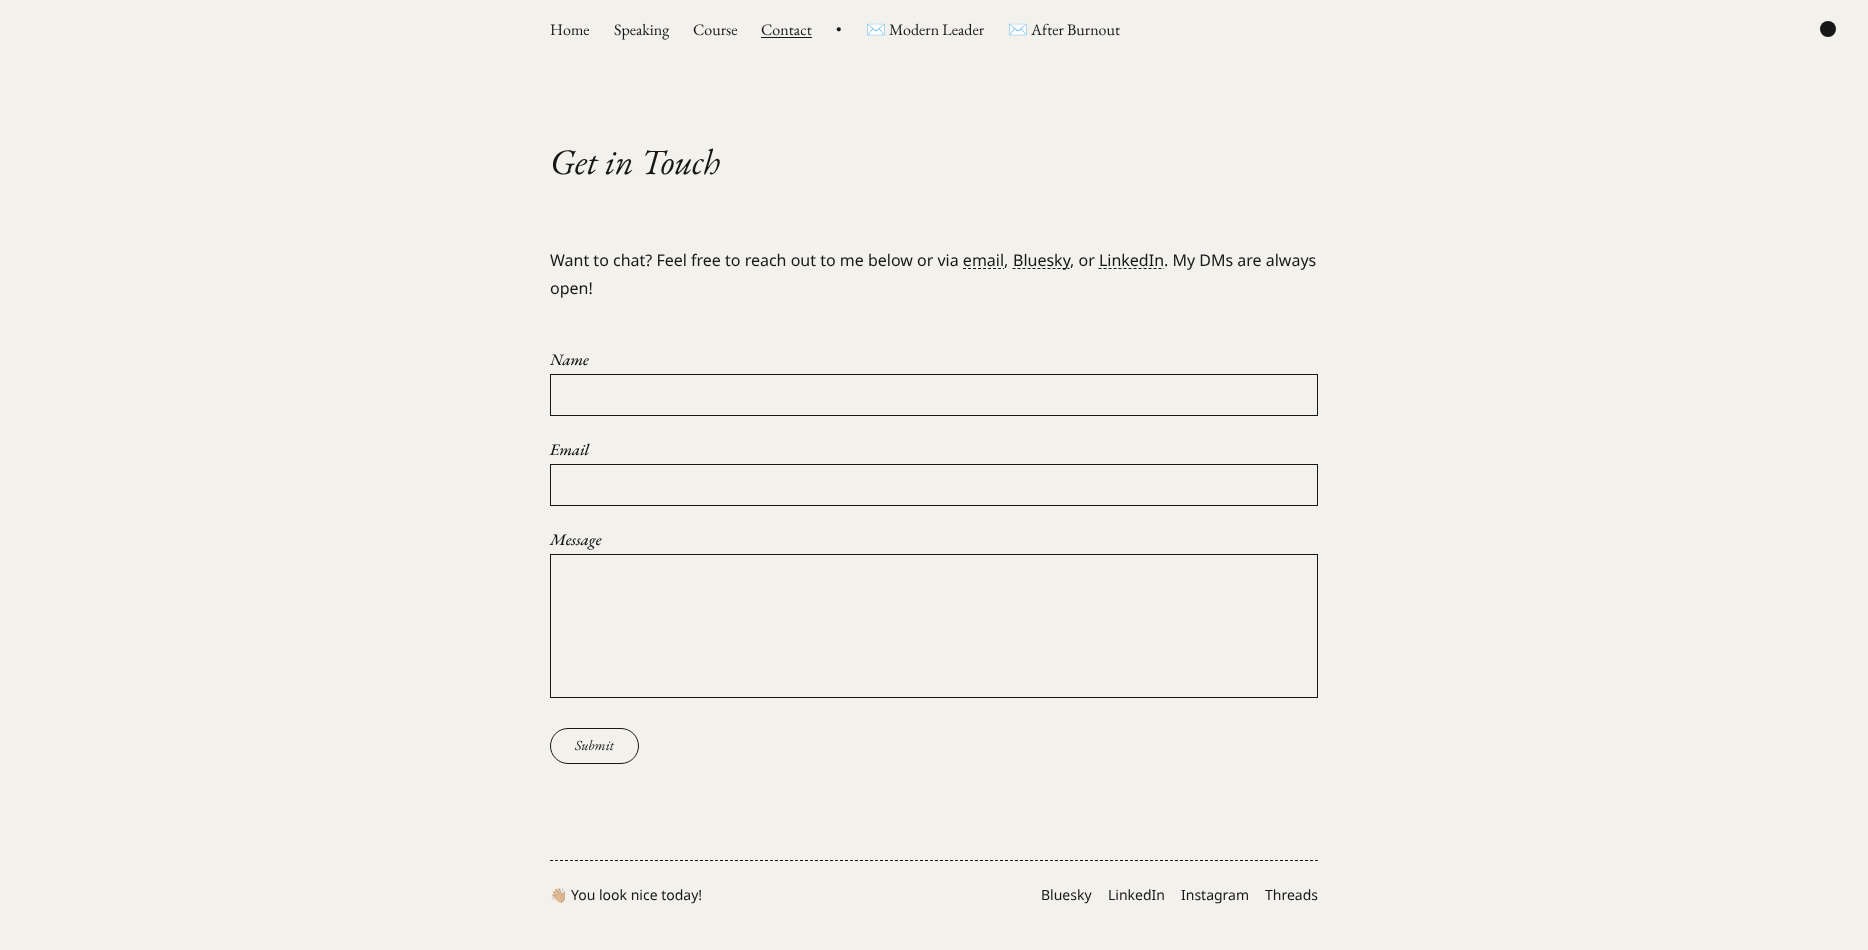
<svg xmlns="http://www.w3.org/2000/svg" width="1868" height="950">
	<rect width="100%" height="100%" fill="#F2F1EC" />
	<g font-family="EB Garamond" font-size="16" fill="#171717">
		<text x="550" y="35">Home</text>
		<text x="614" y="35">Speaking</text>
		<text x="693" y="35">Course</text>
		<text x="761" y="35">Contact</text>
	</g>
	<rect x="761" y="37" width="51" height="1" fill="#171717" />
	<text x="836" y="35" font-family="EB Garamond" font-size="16" fill="#171717">•</text>
	<text x="866" y="35" font-family="Noto Color Emoji" font-size="16" fill="#171717">✉️</text>
	<text x="889" y="35" font-family="EB Garamond" font-size="16" fill="#171717">Modern Leader</text>
	<text x="1008" y="35" font-family="Noto Color Emoji" font-size="16" fill="#171717">✉️</text>
	<text x="1031" y="35" font-family="EB Garamond" font-size="16" fill="#171717">After Burnout</text>
	<circle cx="1828" cy="29" r="8" fill="#171717" />
	<text x="550" y="174" font-family="EB Garamond" font-size="36" font-style="italic" fill="#171717">Get in Touch</text>
	<text x="550" y="266" font-family="Noto Sans" font-size="16" fill="#171717">Want to chat? Feel free to reach out to me below or via email,</text>
	<path d="M1012.5 268.5H1069.5" fill="none" stroke="#171717" stroke-dasharray="3 2" />
	<g font-family="Noto Sans" font-size="16" fill="#171717">
		<text x="1013" y="266">Bluesky</text>
		<text x="1070" y="266">, or LinkedIn. My DMs are always</text>
	</g>
	<path d="M963 268.5H1004" fill="none" stroke="#171717" stroke-dasharray="3 2" />
	<path d="M1098.5 268.5H1164" fill="none" stroke="#171717" stroke-dasharray="3 2" />
	<text x="550" y="294" font-family="Noto Sans" font-size="16" fill="#171717">open!</text>
	<text x="550" y="365" font-family="EB Garamond" font-size="16" font-weight="500" font-style="italic" fill="#171717">Name</text>
	<rect x="550.5" y="374.5" width="767" height="41" fill="none" stroke="#171717" />
	<text x="550" y="455" font-family="EB Garamond" font-size="16" font-weight="500" font-style="italic" fill="#171717">Email</text>
	<rect x="550.5" y="464.5" width="767" height="41" fill="none" stroke="#171717" />
	<text x="550" y="545" font-family="EB Garamond" font-size="16" font-weight="500" font-style="italic" fill="#171717">Message</text>
	<rect x="550.5" y="554.5" width="767" height="143" fill="none" stroke="#171717" />
	<rect x="550.5" y="728.5" width="88" height="35" rx="17.5" fill="none" stroke="#171717" />
	<text x="575" y="750" font-family="EB Garamond" font-size="14" font-style="italic" fill="#171717">Submit</text>
	<path d="M550 860.5H1318" fill="none" stroke="#171717" stroke-dasharray="3 2" />
	<text x="550" y="900" font-family="Noto Color Emoji" font-size="14" fill="#171717">👋🏼</text>
	<g font-family="Noto Sans" font-size="14" fill="#171717">
		<text x="571" y="900">You look nice today!</text>
		<text x="1041" y="900">Bluesky</text>
		<text x="1108" y="900">LinkedIn</text>
		<text x="1181" y="900">Instagram</text>
		<text x="1265" y="900">Threads</text>
	</g>
</svg>
